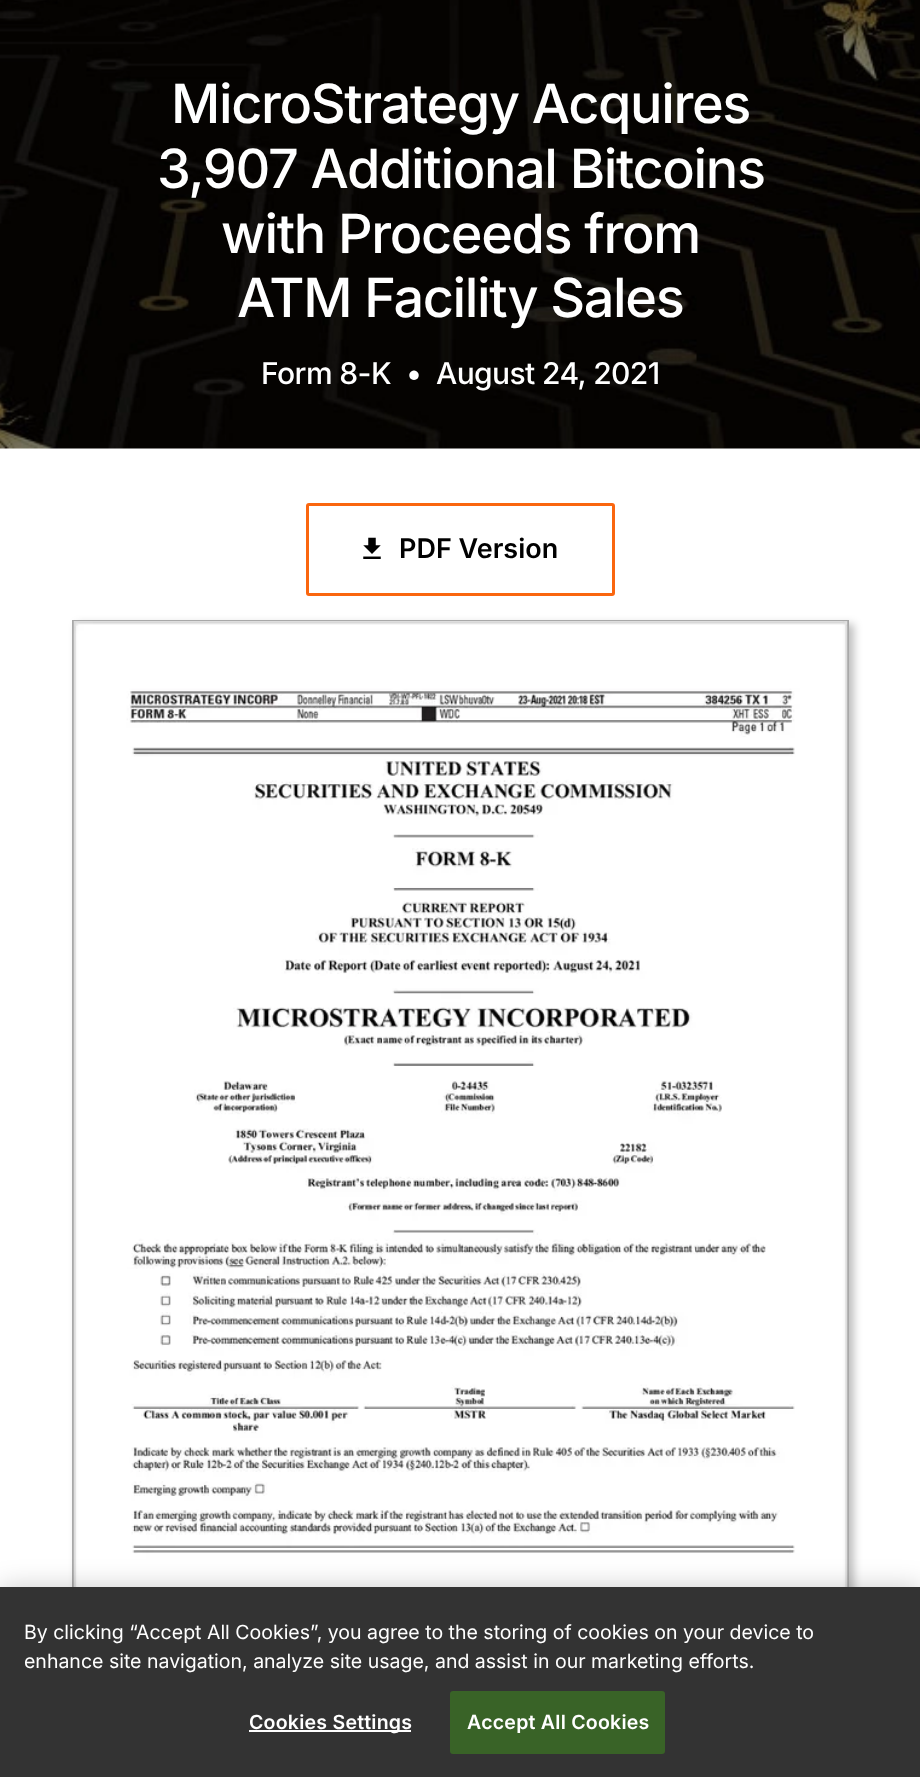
<svg xmlns="http://www.w3.org/2000/svg" width="920" height="1777">
	<rect width="100%" height="100%" fill="#FFFFFF" />
	<image x="0" y="0" width="920" height="449" href="assets/img1.png" />
	<g font-family="Inter" font-size="54" font-weight="500" letter-spacing="-1.35" fill="#FFFFFF">
		<text x="171" y="123">MicroStrategy Acquires</text>
		<text x="157" y="188">3,907 Additional Bitcoins</text>
		<text x="221" y="253">with Proceeds from</text>
		<text x="237" y="317">ATM Facility Sales</text>
	</g>
	<g font-family="Inter" font-size="30" font-weight="500" letter-spacing="-0.6" fill="#FFFFFF">
		<text x="261" y="384">Form 8-K</text>
		<text x="406" y="384">•</text>
		<text x="436" y="384">August 24, 2021</text>
	</g>
	<rect x="307.5" y="504.5" width="306" height="90" rx="1.5" fill="none" stroke="#FA660F" stroke-width="3" />
	<image x="363" y="537" width="18" height="22" href="assets/img2.png" />
	<text x="399" y="558" font-family="Inter" font-size="27" font-weight="600" fill="#000000">PDF Version</text>
	<rect x="77" y="624" width="777" height="1004" fill="#000000" fill-opacity="0.25" filter="blur(4.5px)" />
	<rect x="73" y="621" width="775" height="1001" fill="none" stroke="#A8A8A8" stroke-width="2" />
	<image x="73" y="621" width="775" height="966" href="assets/img3.png" />
	<rect x="0" y="1587" width="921" height="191" fill="#000000" fill-opacity="0.2" filter="blur(13.5px)" />
	<rect x="0" y="1587" width="920" height="190" fill="#333333" />
	<g font-family="Inter" font-size="19.5" fill="#FFFFFF">
		<text x="24" y="1639">By clicking “Accept All Cookies”, you agree to the storing of cookies on your device to</text>
		<text x="24" y="1668">enhance site navigation, analyze site usage, and assist in our marketing efforts.</text>
	</g>
	<rect x="249" y="1730" width="162" height="2" fill="#FFFFFF" />
	<text x="249" y="1729" font-family="Inter" font-size="19.5" font-weight="600" letter-spacing="0.25" fill="#FFFFFF">Cookies Settings</text>
	<rect x="451" y="1692" width="213" height="61" rx="2" fill="#396327" stroke="#396327" stroke-width="2" />
	<text x="467" y="1729" font-family="Inter" font-size="19.5" font-weight="600" letter-spacing="0.25" fill="#FFFFFF">Accept All Cookies</text>
</svg>
